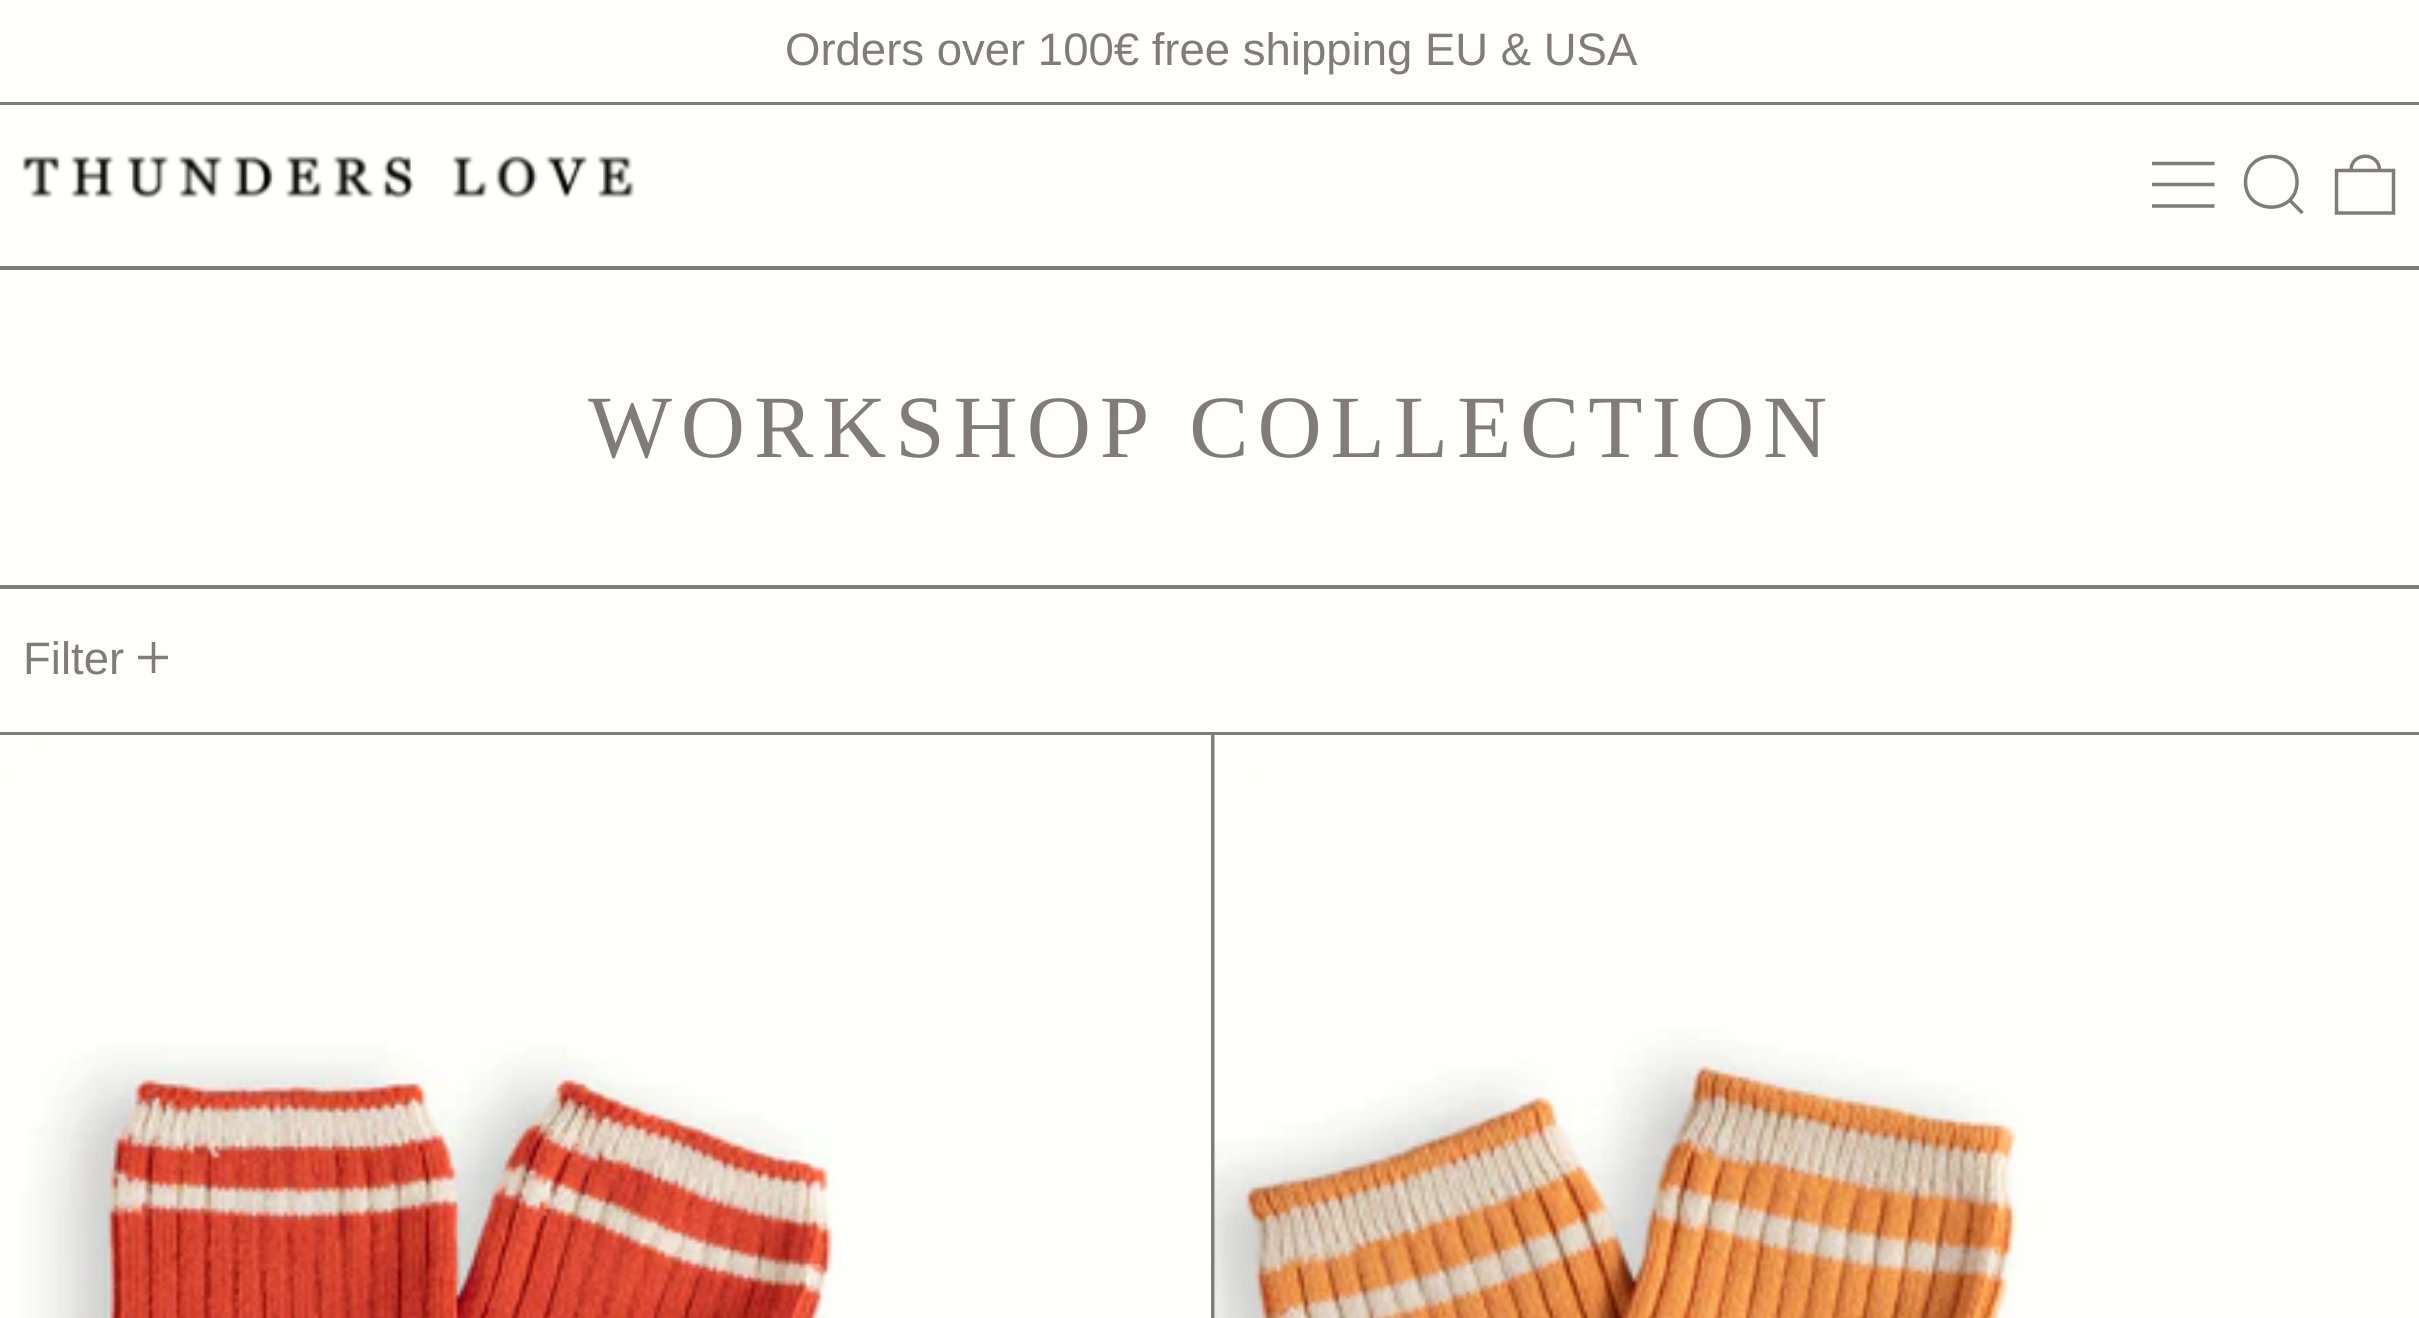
import math
import cairo

surface = cairo.ImageSurface(cairo.FORMAT_RGB24, 2419, 1318)
ctx = cairo.Context(surface)
options = cairo.FontOptions()
options.set_hint_metrics(cairo.HINT_METRICS_OFF)
options.set_hint_style(cairo.HINT_STYLE_NONE)
ctx.set_font_options(options)
ctx.set_miter_limit(4)


def spaced_text(x, y, s, letter, word):
    ctx.move_to(x, y)
    for ch in s:
        ctx.show_text(ch)
        ctx.rel_move_to(letter + word * (ch == ' '), 0)


def picture(path, x, y, w, h):
    ctx.save()
    ctx.set_source_surface(cairo.ImageSurface.create_from_png(path), x, y)
    ctx.rectangle(x, y, w, h)
    ctx.fill()
    ctx.restore()


ctx.set_source_rgb(1, 1, 0.984)
ctx.paint()
ctx.set_source_rgb(0.506, 0.486, 0.471)
ctx.rectangle(0, 102, 2419, 3)
ctx.fill()
ctx.select_font_face("Arimo")
ctx.set_font_size(45.5)
ctx.move_to(785, 65)
ctx.show_text("Orders over 100€ free shipping EU & USA")
ctx.rectangle(0, 266, 2419, 4)
ctx.fill()
picture("img1.png", 22, 155, 612, 45)
ctx.new_path()
ctx.move_to(2152, 163.5)
ctx.line_to(2214.5, 163.5)
ctx.move_to(2152, 184.5)
ctx.line_to(2214.5, 184.5)
ctx.move_to(2152, 206)
ctx.line_to(2214.5, 206)
ctx.set_line_width(3.5)
ctx.stroke()
ctx.new_path()
ctx.move_to(2245.5, 182)
ctx.curve_to(2245.5, 215.5, 2297, 215.5, 2297, 182)
ctx.curve_to(2297, 148, 2245.5, 148, 2245.5, 182)
ctx.close_path()
ctx.move_to(2289.5, 200)
ctx.line_to(2302.5, 213)
ctx.stroke()
ctx.new_path()
ctx.move_to(2336.5, 170.5)
ctx.line_to(2393.5, 170.5)
ctx.line_to(2393.5, 213)
ctx.line_to(2336.5, 213)
ctx.close_path()
ctx.move_to(2379.5, 170.5)
ctx.curve_to(2379.5, 151.5, 2351, 151.5, 2351, 170.5)
ctx.stroke()
ctx.rectangle(0, 585, 2419, 4)
ctx.fill()
ctx.select_font_face("Liberation Serif")
ctx.set_font_size(88.9)
spaced_text(588, 457, "WORKSHOP COLLECTION", 8.9, 0)
ctx.rectangle(0, 732, 2419, 4)
ctx.fill()
ctx.select_font_face("Arimo")
ctx.set_font_size(45.5)
ctx.move_to(23, 674)
ctx.show_text("Filter")
ctx.save()
ctx.rectangle(137, 641, 31, 35)
ctx.clip()
ctx.new_path()
ctx.move_to(153.5, 642)
ctx.line_to(153.5, 673)
ctx.move_to(138, 657.5)
ctx.line_to(169, 657.5)
ctx.stroke()
ctx.restore()
ctx.rectangle(1211, 736, 4, 582)
ctx.fill()
picture("img2.png", 0, 735, 1211, 583)
picture("img3.png", 1214, 735, 1205, 583)
surface.write_to_png("page.png")
